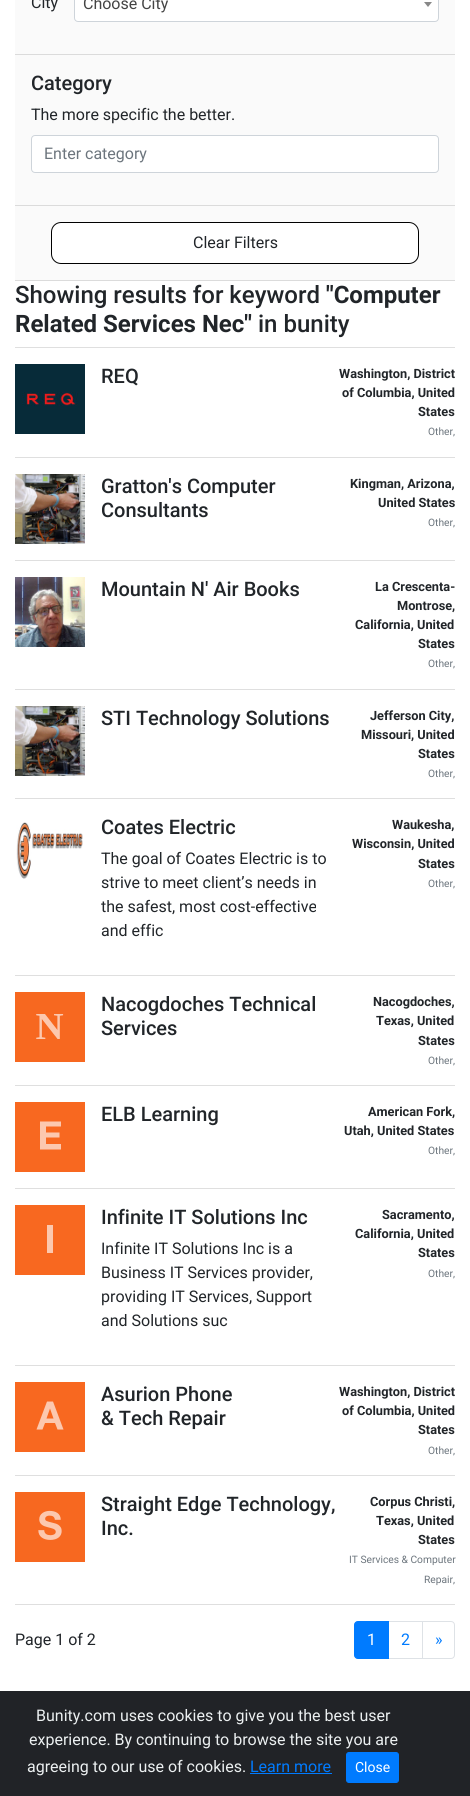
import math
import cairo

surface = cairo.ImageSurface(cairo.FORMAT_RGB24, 470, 1796)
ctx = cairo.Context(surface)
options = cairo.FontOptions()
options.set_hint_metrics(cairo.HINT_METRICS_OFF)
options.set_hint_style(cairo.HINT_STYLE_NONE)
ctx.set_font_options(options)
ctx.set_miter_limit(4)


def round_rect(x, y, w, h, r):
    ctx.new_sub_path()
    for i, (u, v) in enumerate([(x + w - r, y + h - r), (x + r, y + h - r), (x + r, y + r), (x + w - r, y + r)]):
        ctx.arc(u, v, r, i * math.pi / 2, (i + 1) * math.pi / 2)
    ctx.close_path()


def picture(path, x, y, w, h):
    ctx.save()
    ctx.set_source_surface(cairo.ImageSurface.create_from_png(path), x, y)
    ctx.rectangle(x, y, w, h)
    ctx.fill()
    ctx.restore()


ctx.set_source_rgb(1, 1, 1)
ctx.paint()
ctx.set_source_rgb(0.98, 0.98, 0.98)
ctx.rectangle(15, 0, 440, 280)
ctx.fill()
ctx.set_source_rgb(0.859, 0.859, 0.859)
ctx.rectangle(15, 54, 440, 1)
ctx.fill()
ctx.select_font_face("Roboto")
ctx.set_font_size(16)
ctx.set_source_rgb(0.129, 0.145, 0.161)
ctx.move_to(31, 8)
ctx.show_text("City")
ctx.set_source_rgb(1, 1, 1)
round_rect(74.5, -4.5, 364, 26, 3.5)
ctx.fill_preserve()
ctx.set_source_rgb(0.808, 0.831, 0.855)
ctx.set_line_width(1)
ctx.stroke()
ctx.set_source_rgb(0.267, 0.267, 0.267)
ctx.move_to(83, 9)
ctx.show_text("Choose City")
ctx.set_source_rgb(0.533, 0.533, 0.533)
ctx.new_path()
ctx.move_to(424, 2)
ctx.line_to(432, 2)
ctx.line_to(428, 7)
ctx.close_path()
ctx.fill()
ctx.set_source_rgb(0.859, 0.859, 0.859)
ctx.rectangle(15, 205, 440, 1)
ctx.fill()
ctx.select_font_face("Roboto Medium")
ctx.set_font_size(20)
ctx.set_source_rgb(0.129, 0.145, 0.161)
ctx.move_to(31, 90)
ctx.show_text("Category")
ctx.select_font_face("Roboto")
ctx.set_font_size(16)
ctx.move_to(31, 120)
ctx.show_text("The more specific the better.")
ctx.set_source_rgb(1, 1, 1)
round_rect(31.5, 135.5, 407, 37, 3.5)
ctx.fill_preserve()
ctx.set_source_rgb(0.808, 0.831, 0.855)
ctx.stroke()
ctx.set_source_rgb(0.424, 0.459, 0.49)
ctx.move_to(44, 159)
ctx.show_text("Enter category")
ctx.set_source_rgb(0.859, 0.859, 0.859)
ctx.rectangle(15, 280, 440, 1)
ctx.fill()
ctx.set_source_rgb(1, 1, 1)
round_rect(51.5, 222.5, 367, 41, 9.5)
ctx.fill_preserve()
ctx.set_source_rgb(0, 0, 0)
ctx.stroke()
ctx.set_source_rgb(0.129, 0.145, 0.161)
ctx.move_to(193, 248)
ctx.show_text("Clear Filters")
ctx.set_source_rgb(0.875, 0.875, 0.875)
ctx.rectangle(15, 347, 440, 1)
ctx.fill()
ctx.select_font_face("Roboto Medium")
ctx.set_font_size(24)
ctx.set_source_rgb(0.129, 0.145, 0.161)
ctx.move_to(15, 303)
ctx.show_text("Showing results for keyword")
ctx.select_font_face("Roboto", cairo.FONT_SLANT_NORMAL, cairo.FONT_WEIGHT_BOLD)
ctx.move_to(326, 303)
ctx.show_text("\"Computer")
ctx.move_to(15, 332)
ctx.show_text("Related Services Nec\"")
ctx.select_font_face("Roboto Medium")
ctx.move_to(258, 332)
ctx.show_text("in bunity")
ctx.set_source_rgb(0.875, 0.875, 0.875)
ctx.rectangle(15, 457, 440, 1)
ctx.fill()
picture("img1.png", 15, 364, 70, 70)
ctx.set_font_size(20)
ctx.set_source_rgb(0.129, 0.145, 0.161)
ctx.move_to(101, 383)
ctx.show_text("REQ")
ctx.select_font_face("Roboto", cairo.FONT_SLANT_NORMAL, cairo.FONT_WEIGHT_BOLD)
ctx.set_font_size(12.75)
ctx.move_to(339, 378)
ctx.show_text("Washington, District")
ctx.move_to(342, 397)
ctx.show_text("of Columbia, United")
ctx.move_to(418, 416)
ctx.show_text("States")
ctx.select_font_face("Roboto")
ctx.set_font_size(10.25)
ctx.set_source_rgb(0.424, 0.459, 0.49)
ctx.move_to(428, 435)
ctx.show_text("Other,")
ctx.set_source_rgb(0.875, 0.875, 0.875)
ctx.rectangle(15, 560, 440, 1)
ctx.fill()
picture("img2.png", 15, 474, 70, 70)
ctx.select_font_face("Roboto Medium")
ctx.set_font_size(20)
ctx.set_source_rgb(0.129, 0.145, 0.161)
ctx.move_to(101, 493)
ctx.show_text("Gratton's Computer")
ctx.move_to(101, 517)
ctx.show_text("Consultants")
ctx.select_font_face("Roboto", cairo.FONT_SLANT_NORMAL, cairo.FONT_WEIGHT_BOLD)
ctx.set_font_size(12.75)
ctx.move_to(350, 488)
ctx.show_text("Kingman, Arizona,")
ctx.move_to(378, 507)
ctx.show_text("United States")
ctx.select_font_face("Roboto")
ctx.set_font_size(10.25)
ctx.set_source_rgb(0.424, 0.459, 0.49)
ctx.move_to(428, 526)
ctx.show_text("Other,")
ctx.set_source_rgb(0.875, 0.875, 0.875)
ctx.rectangle(15, 689, 440, 1)
ctx.fill()
picture("img3.png", 15, 577, 70, 70)
ctx.select_font_face("Roboto Medium")
ctx.set_font_size(20)
ctx.set_source_rgb(0.129, 0.145, 0.161)
ctx.move_to(101, 596)
ctx.show_text("Mountain N' Air Books")
ctx.select_font_face("Roboto", cairo.FONT_SLANT_NORMAL, cairo.FONT_WEIGHT_BOLD)
ctx.set_font_size(12.75)
ctx.move_to(375, 591)
ctx.show_text("La Crescenta-")
ctx.move_to(397, 610)
ctx.show_text("Montrose,")
ctx.move_to(355, 629)
ctx.show_text("California, United")
ctx.move_to(418, 648)
ctx.show_text("States")
ctx.select_font_face("Roboto")
ctx.set_font_size(10.25)
ctx.set_source_rgb(0.424, 0.459, 0.49)
ctx.move_to(428, 667)
ctx.show_text("Other,")
ctx.set_source_rgb(0.875, 0.875, 0.875)
ctx.rectangle(15, 798, 440, 1)
ctx.fill()
picture("img4.png", 15, 706, 70, 70)
ctx.select_font_face("Roboto Medium")
ctx.set_font_size(20)
ctx.set_source_rgb(0.129, 0.145, 0.161)
ctx.move_to(101, 725)
ctx.show_text("STI Technology Solutions")
ctx.select_font_face("Roboto", cairo.FONT_SLANT_NORMAL, cairo.FONT_WEIGHT_BOLD)
ctx.set_font_size(12.75)
ctx.move_to(370, 720)
ctx.show_text("Jefferson City,")
ctx.move_to(361, 739)
ctx.show_text("Missouri, United")
ctx.move_to(418, 758)
ctx.show_text("States")
ctx.select_font_face("Roboto")
ctx.set_font_size(10.25)
ctx.set_source_rgb(0.424, 0.459, 0.49)
ctx.move_to(428, 777)
ctx.show_text("Other,")
ctx.set_source_rgb(0.875, 0.875, 0.875)
ctx.rectangle(15, 975, 440, 1)
ctx.fill()
picture("img5.png", 16, 822, 67, 57)
ctx.select_font_face("Roboto Medium")
ctx.set_font_size(20)
ctx.set_source_rgb(0.129, 0.145, 0.161)
ctx.move_to(101, 834)
ctx.show_text("Coates Electric")
ctx.select_font_face("Roboto")
ctx.set_font_size(16)
ctx.move_to(101, 864)
ctx.show_text("The goal of Coates Electric is to")
ctx.move_to(101, 888)
ctx.show_text("strive to meet client’s needs in")
ctx.move_to(101, 912)
ctx.show_text("the safest, most cost-effective")
ctx.move_to(101, 936)
ctx.show_text("and effic")
ctx.select_font_face("Roboto", cairo.FONT_SLANT_NORMAL, cairo.FONT_WEIGHT_BOLD)
ctx.set_font_size(12.75)
ctx.move_to(392, 829)
ctx.show_text("Waukesha,")
ctx.move_to(352, 848)
ctx.show_text("Wisconsin, United")
ctx.move_to(418, 868)
ctx.show_text("States")
ctx.select_font_face("Roboto")
ctx.set_font_size(10.25)
ctx.set_source_rgb(0.424, 0.459, 0.49)
ctx.move_to(428, 887)
ctx.show_text("Other,")
ctx.set_source_rgb(0.875, 0.875, 0.875)
ctx.rectangle(15, 1085, 440, 1)
ctx.fill()
picture("img6.png", 15, 992, 70, 70)
ctx.select_font_face("Roboto Medium")
ctx.set_font_size(20)
ctx.set_source_rgb(0.129, 0.145, 0.161)
ctx.move_to(101, 1011)
ctx.show_text("Nacogdoches Technical")
ctx.move_to(101, 1035)
ctx.show_text("Services")
ctx.select_font_face("Roboto", cairo.FONT_SLANT_NORMAL, cairo.FONT_WEIGHT_BOLD)
ctx.set_font_size(12.75)
ctx.move_to(373, 1006)
ctx.show_text("Nacogdoches,")
ctx.move_to(376, 1025)
ctx.show_text("Texas, United")
ctx.move_to(418, 1045)
ctx.show_text("States")
ctx.select_font_face("Roboto")
ctx.set_font_size(10.25)
ctx.set_source_rgb(0.424, 0.459, 0.49)
ctx.move_to(428, 1064)
ctx.show_text("Other,")
ctx.set_source_rgb(0.875, 0.875, 0.875)
ctx.rectangle(15, 1188, 440, 1)
ctx.fill()
ctx.set_source_rgb(0.969, 0.408, 0.125)
ctx.rectangle(15, 1102, 70, 70)
ctx.fill()
ctx.set_source_rgb(0.988, 0.784, 0.686)
ctx.new_path()
ctx.move_to(61, 1121.5)
ctx.line_to(61, 1126.5)
ctx.line_to(46, 1126.5)
ctx.line_to(46, 1132.5)
ctx.line_to(59.5, 1132.5)
ctx.line_to(59.5, 1137.5)
ctx.line_to(46, 1137.5)
ctx.line_to(46, 1144)
ctx.line_to(61, 1144)
ctx.line_to(61, 1149.5)
ctx.line_to(40, 1149.5)
ctx.line_to(40, 1121.5)
ctx.close_path()
ctx.fill()
ctx.select_font_face("Roboto Medium")
ctx.set_font_size(20)
ctx.set_source_rgb(0.129, 0.145, 0.161)
ctx.move_to(101, 1121)
ctx.show_text("ELB Learning")
ctx.select_font_face("Roboto", cairo.FONT_SLANT_NORMAL, cairo.FONT_WEIGHT_BOLD)
ctx.set_font_size(12.75)
ctx.move_to(368, 1116)
ctx.show_text("American Fork,")
ctx.move_to(344, 1135)
ctx.show_text("Utah, United States")
ctx.select_font_face("Roboto")
ctx.set_font_size(10.25)
ctx.set_source_rgb(0.424, 0.459, 0.49)
ctx.move_to(428, 1154)
ctx.show_text("Other,")
ctx.set_source_rgb(0.875, 0.875, 0.875)
ctx.rectangle(15, 1365, 440, 1)
ctx.fill()
ctx.set_source_rgb(0.969, 0.408, 0.125)
ctx.rectangle(15, 1205, 70, 70)
ctx.fill()
ctx.set_source_rgb(0.988, 0.784, 0.686)
ctx.rectangle(47, 1225, 6, 28)
ctx.fill()
ctx.select_font_face("Roboto Medium")
ctx.set_font_size(20)
ctx.set_source_rgb(0.129, 0.145, 0.161)
ctx.move_to(101, 1224)
ctx.show_text("Infinite IT Solutions Inc")
ctx.select_font_face("Roboto")
ctx.set_font_size(16)
ctx.move_to(101, 1254)
ctx.show_text("Infinite IT Solutions Inc is a")
ctx.move_to(101, 1278)
ctx.show_text("Business IT Services provider,")
ctx.move_to(101, 1302)
ctx.show_text("providing IT Services, Support")
ctx.move_to(101, 1326)
ctx.show_text("and Solutions suc")
ctx.select_font_face("Roboto", cairo.FONT_SLANT_NORMAL, cairo.FONT_WEIGHT_BOLD)
ctx.set_font_size(12.75)
ctx.move_to(382, 1219)
ctx.show_text("Sacramento,")
ctx.move_to(355, 1238)
ctx.show_text("California, United")
ctx.move_to(418, 1257)
ctx.show_text("States")
ctx.select_font_face("Roboto")
ctx.set_font_size(10.25)
ctx.set_source_rgb(0.424, 0.459, 0.49)
ctx.move_to(428, 1277)
ctx.show_text("Other,")
ctx.set_source_rgb(0.875, 0.875, 0.875)
ctx.rectangle(15, 1475, 440, 1)
ctx.fill()
ctx.set_source_rgb(0.969, 0.408, 0.125)
ctx.rectangle(15, 1382, 70, 70)
ctx.fill()
ctx.set_source_rgb(0.988, 0.784, 0.686)
ctx.new_path()
ctx.move_to(53, 1401.5)
ctx.line_to(63.5, 1429.5)
ctx.line_to(57.5, 1429.5)
ctx.line_to(55, 1423)
ctx.line_to(45, 1423)
ctx.line_to(42.5, 1429.5)
ctx.line_to(36.5, 1429.5)
ctx.line_to(47, 1401.5)
ctx.close_path()
ctx.move_to(53.5, 1418.5)
ctx.line_to(50, 1408.5)
ctx.line_to(46.5, 1418.5)
ctx.close_path()
ctx.fill()
ctx.select_font_face("Roboto Medium")
ctx.set_font_size(20)
ctx.set_source_rgb(0.129, 0.145, 0.161)
ctx.move_to(101, 1401)
ctx.show_text("Asurion Phone")
ctx.move_to(101, 1425)
ctx.show_text("& Tech Repair")
ctx.select_font_face("Roboto", cairo.FONT_SLANT_NORMAL, cairo.FONT_WEIGHT_BOLD)
ctx.set_font_size(12.75)
ctx.move_to(339, 1396)
ctx.show_text("Washington, District")
ctx.move_to(342, 1415)
ctx.show_text("of Columbia, United")
ctx.move_to(418, 1434)
ctx.show_text("States")
ctx.select_font_face("Roboto")
ctx.set_font_size(10.25)
ctx.set_source_rgb(0.424, 0.459, 0.49)
ctx.move_to(428, 1454)
ctx.show_text("Other,")
ctx.set_source_rgb(0.875, 0.875, 0.875)
ctx.rectangle(15, 1604, 440, 1)
ctx.fill()
picture("img7.png", 15, 1492, 70, 70)
ctx.select_font_face("Roboto Medium")
ctx.set_font_size(20)
ctx.set_source_rgb(0.129, 0.145, 0.161)
ctx.move_to(101, 1511)
ctx.show_text("Straight Edge Technology,")
ctx.move_to(101, 1535)
ctx.show_text("Inc.")
ctx.select_font_face("Roboto", cairo.FONT_SLANT_NORMAL, cairo.FONT_WEIGHT_BOLD)
ctx.set_font_size(12.75)
ctx.move_to(370, 1506)
ctx.show_text("Corpus Christi,")
ctx.move_to(376, 1525)
ctx.show_text("Texas, United")
ctx.move_to(418, 1544)
ctx.show_text("States")
ctx.select_font_face("Roboto")
ctx.set_font_size(10.25)
ctx.set_source_rgb(0.424, 0.459, 0.49)
ctx.move_to(349, 1563)
ctx.show_text("IT Services & Computer")
ctx.move_to(424, 1583)
ctx.show_text("Repair,")
ctx.set_font_size(16)
ctx.set_source_rgb(0.129, 0.145, 0.161)
ctx.move_to(15, 1645)
ctx.show_text("Page 1 of 2")
ctx.rectangle(388.5, 1621.5, 34, 37)
ctx.set_source_rgb(0.871, 0.886, 0.902)
ctx.stroke()
ctx.set_source_rgb(0, 0.482, 1)
ctx.new_path()
ctx.move_to(358, 1621.5)
ctx.line_to(388.5, 1621.5)
ctx.line_to(388.5, 1658.5)
ctx.line_to(358, 1658.5)
ctx.curve_to(356, 1658.5, 354.5, 1657, 354.5, 1655)
ctx.line_to(354.5, 1625)
ctx.curve_to(354.5, 1623, 356, 1621.5, 358, 1621.5)
ctx.close_path()
ctx.fill_preserve()
ctx.stroke()
ctx.set_source_rgb(1, 1, 1)
ctx.move_to(367, 1645)
ctx.show_text("1")
ctx.set_source_rgb(0, 0.482, 1)
ctx.move_to(401, 1645)
ctx.show_text("2")
ctx.set_source_rgb(1, 1, 1)
ctx.new_path()
ctx.move_to(422.5, 1621.5)
ctx.line_to(451, 1621.5)
ctx.curve_to(453, 1621.5, 454.5, 1623, 454.5, 1625)
ctx.line_to(454.5, 1655)
ctx.curve_to(454.5, 1657, 453, 1658.5, 451, 1658.5)
ctx.line_to(422.5, 1658.5)
ctx.close_path()
ctx.fill_preserve()
ctx.set_source_rgb(0.871, 0.886, 0.902)
ctx.stroke()
ctx.set_source_rgb(0, 0.482, 1)
ctx.move_to(435, 1645)
ctx.show_text("»")
ctx.set_source_rgb(0.129, 0.137, 0.153)
ctx.rectangle(0, 1691, 470, 105)
ctx.fill()
ctx.set_source_rgb(0.925, 0.941, 0.945)
ctx.move_to(36, 1721)
ctx.show_text("Bunity.com uses cookies to give you the best user")
ctx.move_to(29, 1745)
ctx.show_text("experience. By continuing to browse the site you are")
ctx.move_to(27, 1772)
ctx.show_text("agreeing to our use of cookies.")
ctx.set_source_rgb(0, 0.482, 1)
ctx.move_to(250, 1772)
ctx.show_text("Learn more")
ctx.rectangle(250, 1773, 82, 1)
ctx.fill()
round_rect(346.5, 1752.5, 52, 30, 2.5)
ctx.fill_preserve()
ctx.stroke()
ctx.set_font_size(14)
ctx.set_source_rgb(1, 1, 1)
ctx.move_to(355, 1772)
ctx.show_text("Close")
surface.write_to_png("page.png")
